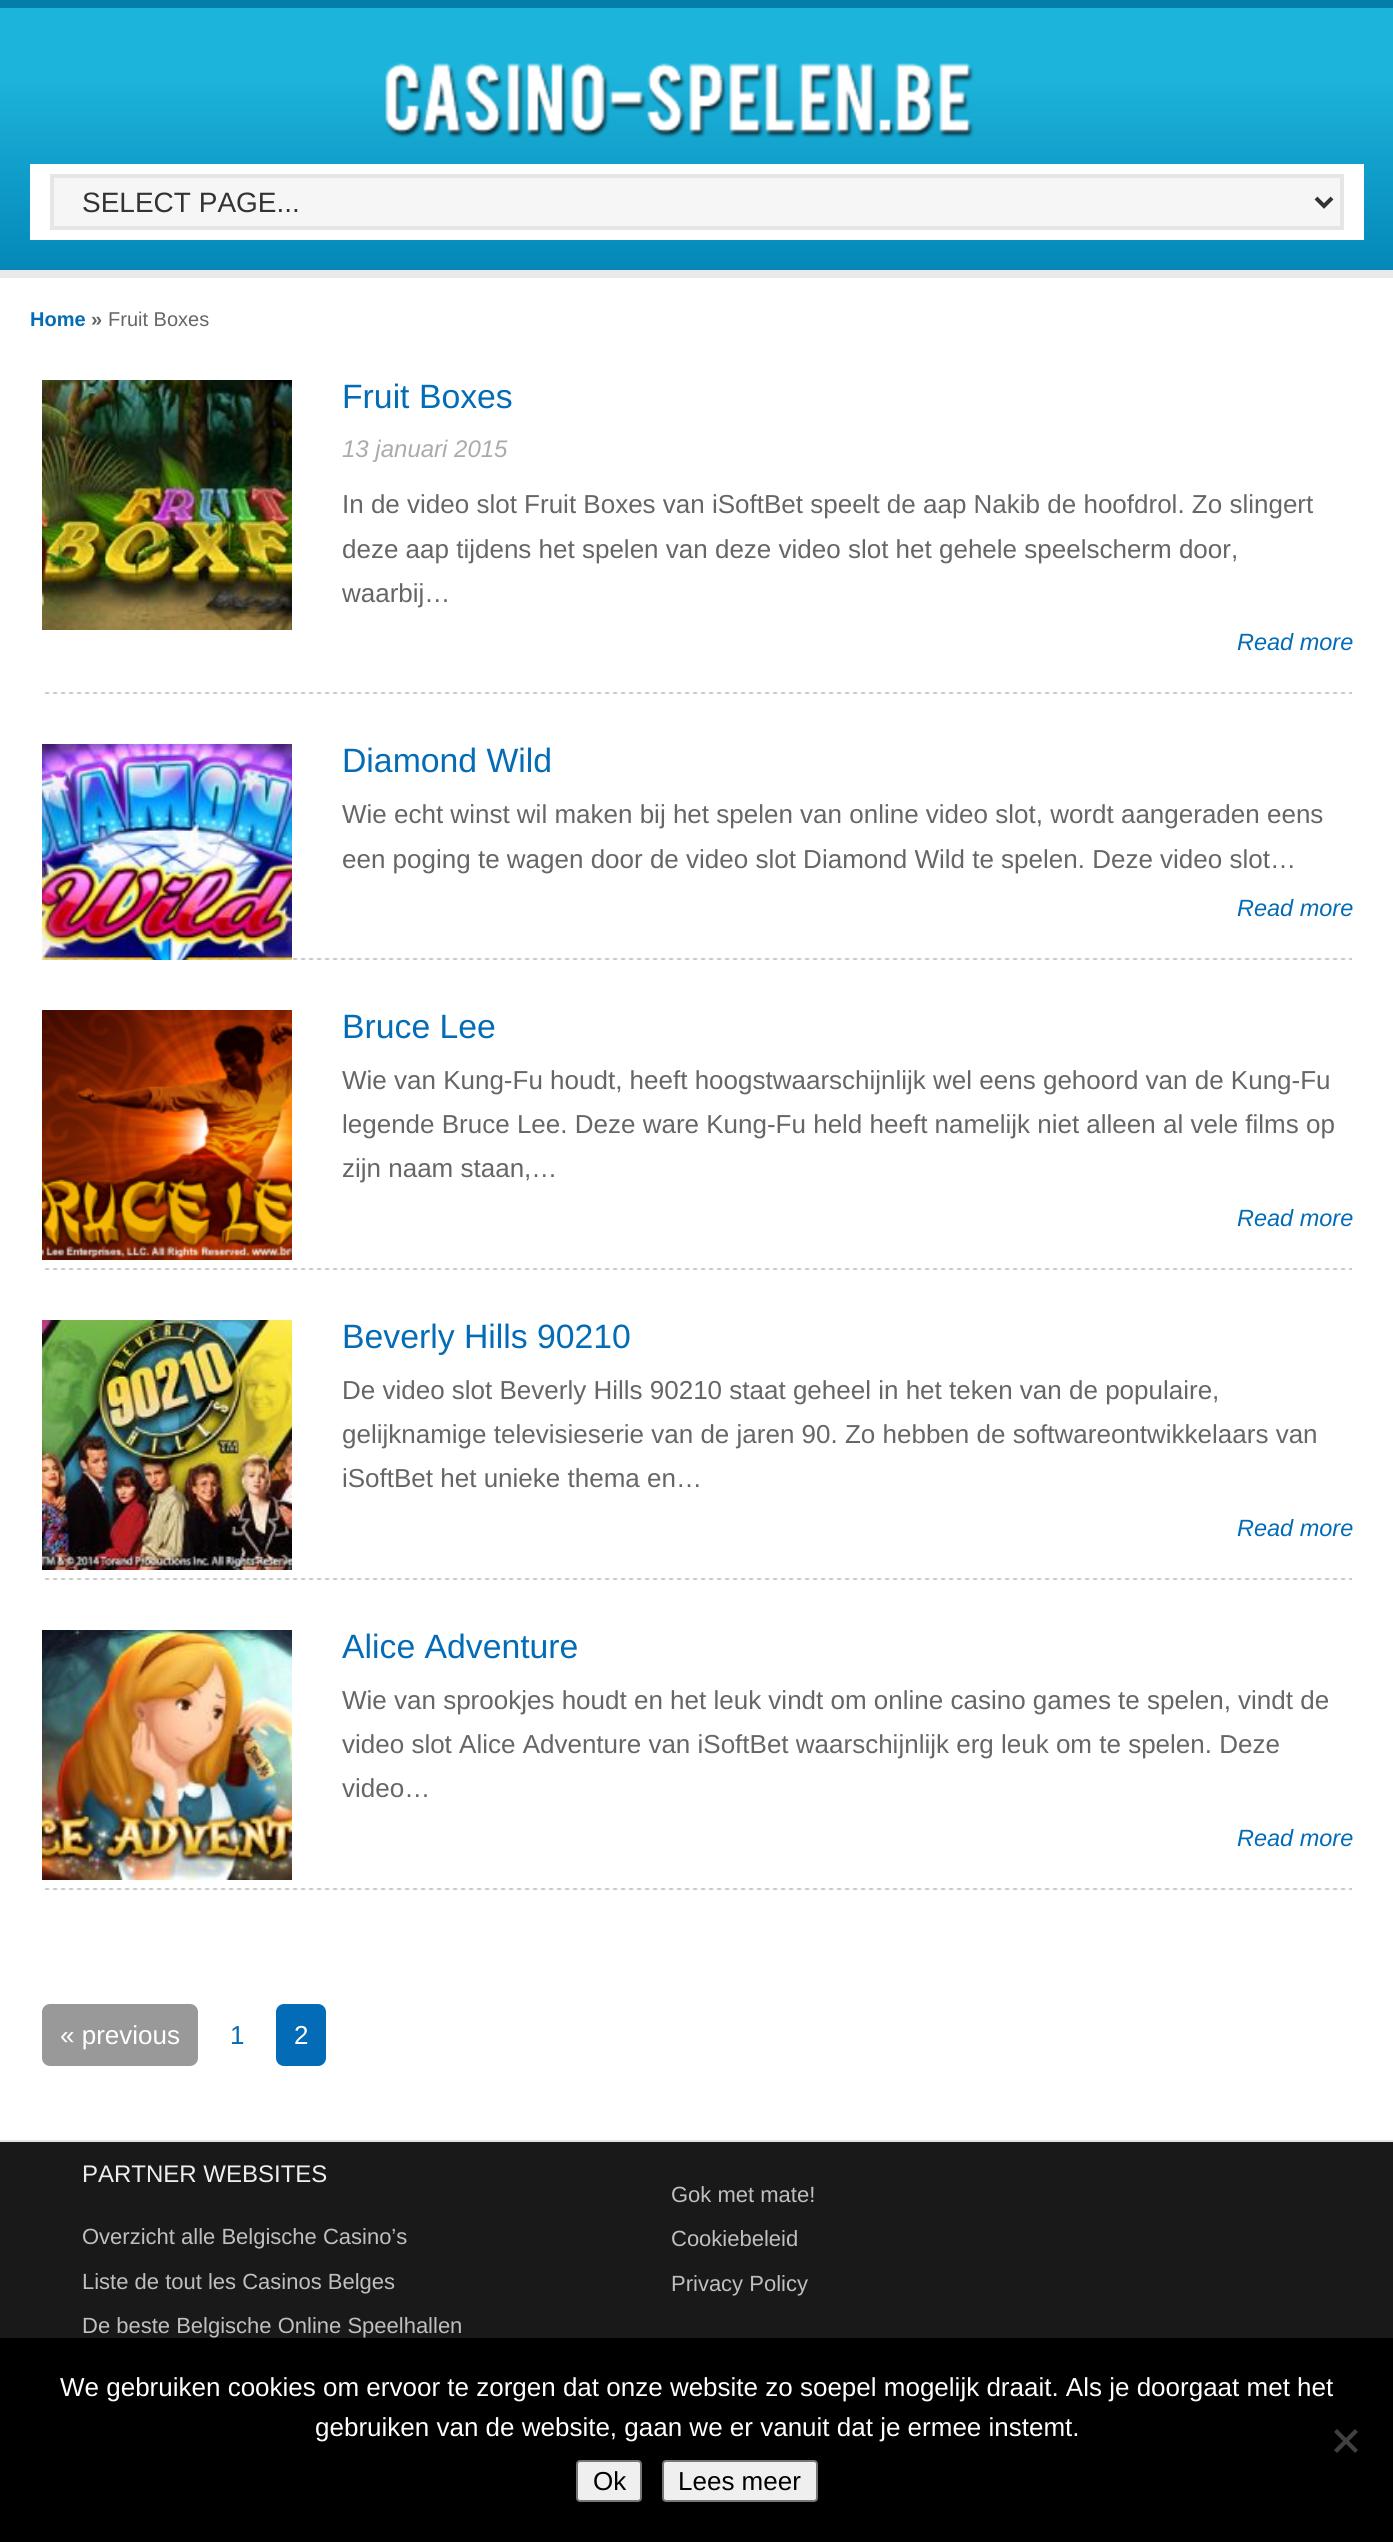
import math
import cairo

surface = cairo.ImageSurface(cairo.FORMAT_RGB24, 1393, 2542)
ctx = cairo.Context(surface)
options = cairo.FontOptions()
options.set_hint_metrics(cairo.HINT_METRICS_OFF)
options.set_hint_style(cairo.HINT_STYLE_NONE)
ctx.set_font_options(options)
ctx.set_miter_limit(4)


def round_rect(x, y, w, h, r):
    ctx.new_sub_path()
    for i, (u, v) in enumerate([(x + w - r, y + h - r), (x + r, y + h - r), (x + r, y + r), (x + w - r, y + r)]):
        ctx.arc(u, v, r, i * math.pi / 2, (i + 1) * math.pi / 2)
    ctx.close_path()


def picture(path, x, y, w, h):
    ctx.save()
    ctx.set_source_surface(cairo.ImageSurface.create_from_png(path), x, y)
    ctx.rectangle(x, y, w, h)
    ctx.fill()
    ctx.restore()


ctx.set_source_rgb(0.098, 0.098, 0.098)
ctx.paint()
gradient = cairo.LinearGradient(697, 8, 697, 270)
gradient.add_color_stop_rgba(0.25, 0.114, 0.706, 0.859, 1)
gradient.add_color_stop_rgba(1, 0.016, 0.533, 0.722, 1)
ctx.set_source(gradient)
ctx.rectangle(0, 8, 1393, 262)
ctx.fill()
ctx.set_source_rgb(0.02, 0.49, 0.663)
ctx.rectangle(0, 0, 1393, 8)
ctx.fill()
ctx.set_source_rgb(0.914, 0.914, 0.914)
ctx.rectangle(0, 270, 1393, 8)
ctx.fill()
picture("img1.png", 385, 63, 589, 75)
ctx.set_source_rgb(1, 1, 1)
ctx.rectangle(30, 164, 1334, 76)
ctx.fill()
ctx.set_source_rgb(0.961, 0.961, 0.961)
ctx.rectangle(52, 176, 1290, 52)
ctx.fill_preserve()
ctx.set_source_rgb(0.902, 0.902, 0.902)
ctx.set_line_width(4)
ctx.stroke()
ctx.new_path()
ctx.move_to(1316, 198)
ctx.line_to(1324, 206)
ctx.line_to(1332, 198)
ctx.set_source_rgb(0.2, 0.2, 0.2)
ctx.stroke()
ctx.select_font_face("Liberation Sans")
ctx.set_font_size(28)
ctx.move_to(82, 212)
ctx.show_text("SELECT PAGE...")
ctx.set_source_rgb(1, 1, 1)
ctx.rectangle(0, 278, 1393, 1862)
ctx.fill()
ctx.select_font_face("Liberation Sans", cairo.FONT_SLANT_NORMAL, cairo.FONT_WEIGHT_BOLD)
ctx.set_font_size(20)
ctx.set_source_rgb(0.016, 0.424, 0.714)
ctx.move_to(30, 326)
ctx.show_text("Home")
ctx.set_source_rgb(0.4, 0.4, 0.4)
ctx.move_to(91, 326)
ctx.show_text("»")
ctx.select_font_face("Liberation Sans")
ctx.move_to(108, 326)
ctx.show_text("Fruit Boxes")
picture("img2.png", 44, 692, 1308, 2)
picture("img3.png", 42, 380, 250, 250)
ctx.set_font_size(33.75)
ctx.set_source_rgb(0.016, 0.424, 0.714)
ctx.move_to(342, 408)
ctx.show_text("Fruit Boxes")
ctx.select_font_face("Liberation Sans", cairo.FONT_SLANT_ITALIC)
ctx.set_font_size(24)
ctx.set_source_rgb(0.671, 0.671, 0.671)
ctx.move_to(342, 457)
ctx.show_text("13 januari 2015")
ctx.select_font_face("Liberation Sans")
ctx.set_font_size(26)
ctx.set_source_rgb(0.4, 0.4, 0.4)
ctx.move_to(342, 513)
ctx.show_text("In de video slot Fruit Boxes van iSoftBet speelt de aap Nakib de hoofdrol. Zo slingert")
ctx.move_to(342, 558)
ctx.show_text("deze aap tijdens het spelen van deze video slot het gehele speelscherm door,")
ctx.move_to(342, 602)
ctx.show_text("waarbij…")
ctx.select_font_face("Liberation Sans", cairo.FONT_SLANT_ITALIC)
ctx.set_font_size(23.5)
ctx.set_source_rgb(0.016, 0.424, 0.714)
ctx.move_to(1237, 650)
ctx.show_text("Read more")
picture("img4.png", 292, 958, 1060, 2)
picture("img5.png", 42, 744, 250, 216)
ctx.select_font_face("Liberation Sans")
ctx.set_font_size(33.75)
ctx.move_to(342, 772)
ctx.show_text("Diamond Wild")
ctx.set_font_size(26)
ctx.set_source_rgb(0.4, 0.4, 0.4)
ctx.move_to(342, 823)
ctx.show_text("Wie echt winst wil maken bij het spelen van online video slot, wordt aangeraden eens")
ctx.move_to(342, 868)
ctx.show_text("een poging te wagen door de video slot Diamond Wild te spelen. Deze video slot…")
ctx.select_font_face("Liberation Sans", cairo.FONT_SLANT_ITALIC)
ctx.set_font_size(23.5)
ctx.set_source_rgb(0.016, 0.424, 0.714)
ctx.move_to(1237, 916)
ctx.show_text("Read more")
picture("img2.png", 44, 1268, 1308, 2)
picture("img6.png", 42, 1010, 250, 250)
ctx.select_font_face("Liberation Sans")
ctx.set_font_size(33.75)
ctx.move_to(342, 1038)
ctx.show_text("Bruce Lee")
ctx.set_font_size(26)
ctx.set_source_rgb(0.4, 0.4, 0.4)
ctx.move_to(342, 1089)
ctx.show_text("Wie van Kung-Fu houdt, heeft hoogstwaarschijnlijk wel eens gehoord van de Kung-Fu")
ctx.move_to(342, 1133)
ctx.show_text("legende Bruce Lee. Deze ware Kung-Fu held heeft namelijk niet alleen al vele films op")
ctx.move_to(342, 1177)
ctx.show_text("zijn naam staan,…")
ctx.select_font_face("Liberation Sans", cairo.FONT_SLANT_ITALIC)
ctx.set_font_size(23.5)
ctx.set_source_rgb(0.016, 0.424, 0.714)
ctx.move_to(1237, 1226)
ctx.show_text("Read more")
picture("img2.png", 44, 1578, 1308, 2)
picture("img7.png", 42, 1320, 250, 250)
ctx.select_font_face("Liberation Sans")
ctx.set_font_size(33.75)
ctx.move_to(342, 1348)
ctx.show_text("Beverly Hills 90210")
ctx.set_font_size(26)
ctx.set_source_rgb(0.4, 0.4, 0.4)
ctx.move_to(342, 1399)
ctx.show_text("De video slot Beverly Hills 90210 staat geheel in het teken van de populaire,")
ctx.move_to(342, 1443)
ctx.show_text("gelijknamige televisieserie van de jaren 90. Zo hebben de softwareontwikkelaars van")
ctx.move_to(342, 1487)
ctx.show_text("iSoftBet het unieke thema en…")
ctx.select_font_face("Liberation Sans", cairo.FONT_SLANT_ITALIC)
ctx.set_font_size(23.5)
ctx.set_source_rgb(0.016, 0.424, 0.714)
ctx.move_to(1237, 1536)
ctx.show_text("Read more")
picture("img2.png", 44, 1888, 1308, 2)
picture("img8.png", 42, 1630, 250, 250)
ctx.select_font_face("Liberation Sans")
ctx.set_font_size(33.75)
ctx.move_to(342, 1658)
ctx.show_text("Alice Adventure")
ctx.set_font_size(26)
ctx.set_source_rgb(0.4, 0.4, 0.4)
ctx.move_to(342, 1709)
ctx.show_text("Wie van sprookjes houdt en het leuk vindt om online casino games te spelen, vindt de")
ctx.move_to(342, 1753)
ctx.show_text("video slot Alice Adventure van iSoftBet waarschijnlijk erg leuk om te spelen. Deze")
ctx.move_to(342, 1797)
ctx.show_text("video…")
ctx.select_font_face("Liberation Sans", cairo.FONT_SLANT_ITALIC)
ctx.set_font_size(23.5)
ctx.set_source_rgb(0.016, 0.424, 0.714)
ctx.move_to(1237, 1846)
ctx.show_text("Read more")
ctx.set_source_rgb(0.6, 0.6, 0.6)
round_rect(42, 2004, 156, 62, 8)
ctx.fill()
ctx.select_font_face("Liberation Sans")
ctx.set_font_size(26)
ctx.set_source_rgb(1, 1, 1)
ctx.move_to(60, 2044)
ctx.show_text("« previous")
ctx.set_source_rgb(0.016, 0.424, 0.714)
ctx.move_to(230, 2044)
ctx.show_text("1")
round_rect(276, 2004, 50, 62, 8)
ctx.fill()
ctx.set_source_rgb(1, 1, 1)
ctx.move_to(294, 2044)
ctx.show_text("2")
ctx.set_source_rgb(0.886, 0.886, 0.886)
ctx.rectangle(0, 2140, 1393, 2)
ctx.fill()
ctx.set_font_size(24)
ctx.set_source_rgb(0.933, 0.933, 0.933)
ctx.move_to(82, 2182)
ctx.show_text("PARTNER WEBSITES")
ctx.set_font_size(22)
ctx.set_source_rgb(0.749, 0.749, 0.749)
ctx.move_to(82, 2244)
ctx.show_text("Overzicht alle Belgische Casino’s")
ctx.move_to(82, 2289)
ctx.show_text("Liste de tout les Casinos Belges")
ctx.move_to(82, 2333)
ctx.show_text("De beste Belgische Online Speelhallen")
ctx.move_to(671, 2202)
ctx.show_text("Gok met mate!")
ctx.move_to(671, 2246)
ctx.show_text("Cookiebeleid")
ctx.move_to(671, 2291)
ctx.show_text("Privacy Policy")
ctx.set_source_rgb(0, 0, 0)
ctx.rectangle(0, 2338, 1393, 204)
ctx.fill()
ctx.set_font_size(26)
ctx.set_source_rgb(1, 1, 1)
ctx.move_to(60, 2396)
ctx.show_text("We gebruiken cookies om ervoor te zorgen dat onze website zo soepel mogelijk draait. Als je doorgaat met het")
ctx.move_to(315, 2436)
ctx.show_text("gebruiken van de website, gaan we er vanuit dat je ermee instemt.")
ctx.set_source_rgb(0.251, 0.251, 0.251)
ctx.new_path()
ctx.move_to(1355, 2429)
ctx.line_to(1358, 2432)
ctx.line_to(1337, 2453)
ctx.line_to(1334, 2450)
ctx.close_path()
ctx.fill()
ctx.new_path()
ctx.move_to(1334, 2432)
ctx.line_to(1337, 2429)
ctx.line_to(1358, 2450)
ctx.line_to(1355, 2453)
ctx.close_path()
ctx.fill()
ctx.set_source_rgb(0.937, 0.937, 0.937)
round_rect(577, 2461, 64, 40, 3)
ctx.fill_preserve()
ctx.set_source_rgb(0.463, 0.463, 0.463)
ctx.set_line_width(2)
ctx.stroke()
ctx.set_source_rgb(0, 0, 0)
ctx.move_to(593, 2490)
ctx.show_text("Ok")
ctx.set_source_rgb(0.937, 0.937, 0.937)
round_rect(663, 2461, 154, 40, 3)
ctx.fill_preserve()
ctx.set_source_rgb(0.463, 0.463, 0.463)
ctx.stroke()
ctx.set_source_rgb(0, 0, 0)
ctx.move_to(678, 2490)
ctx.show_text("Lees meer")
surface.write_to_png("page.png")
